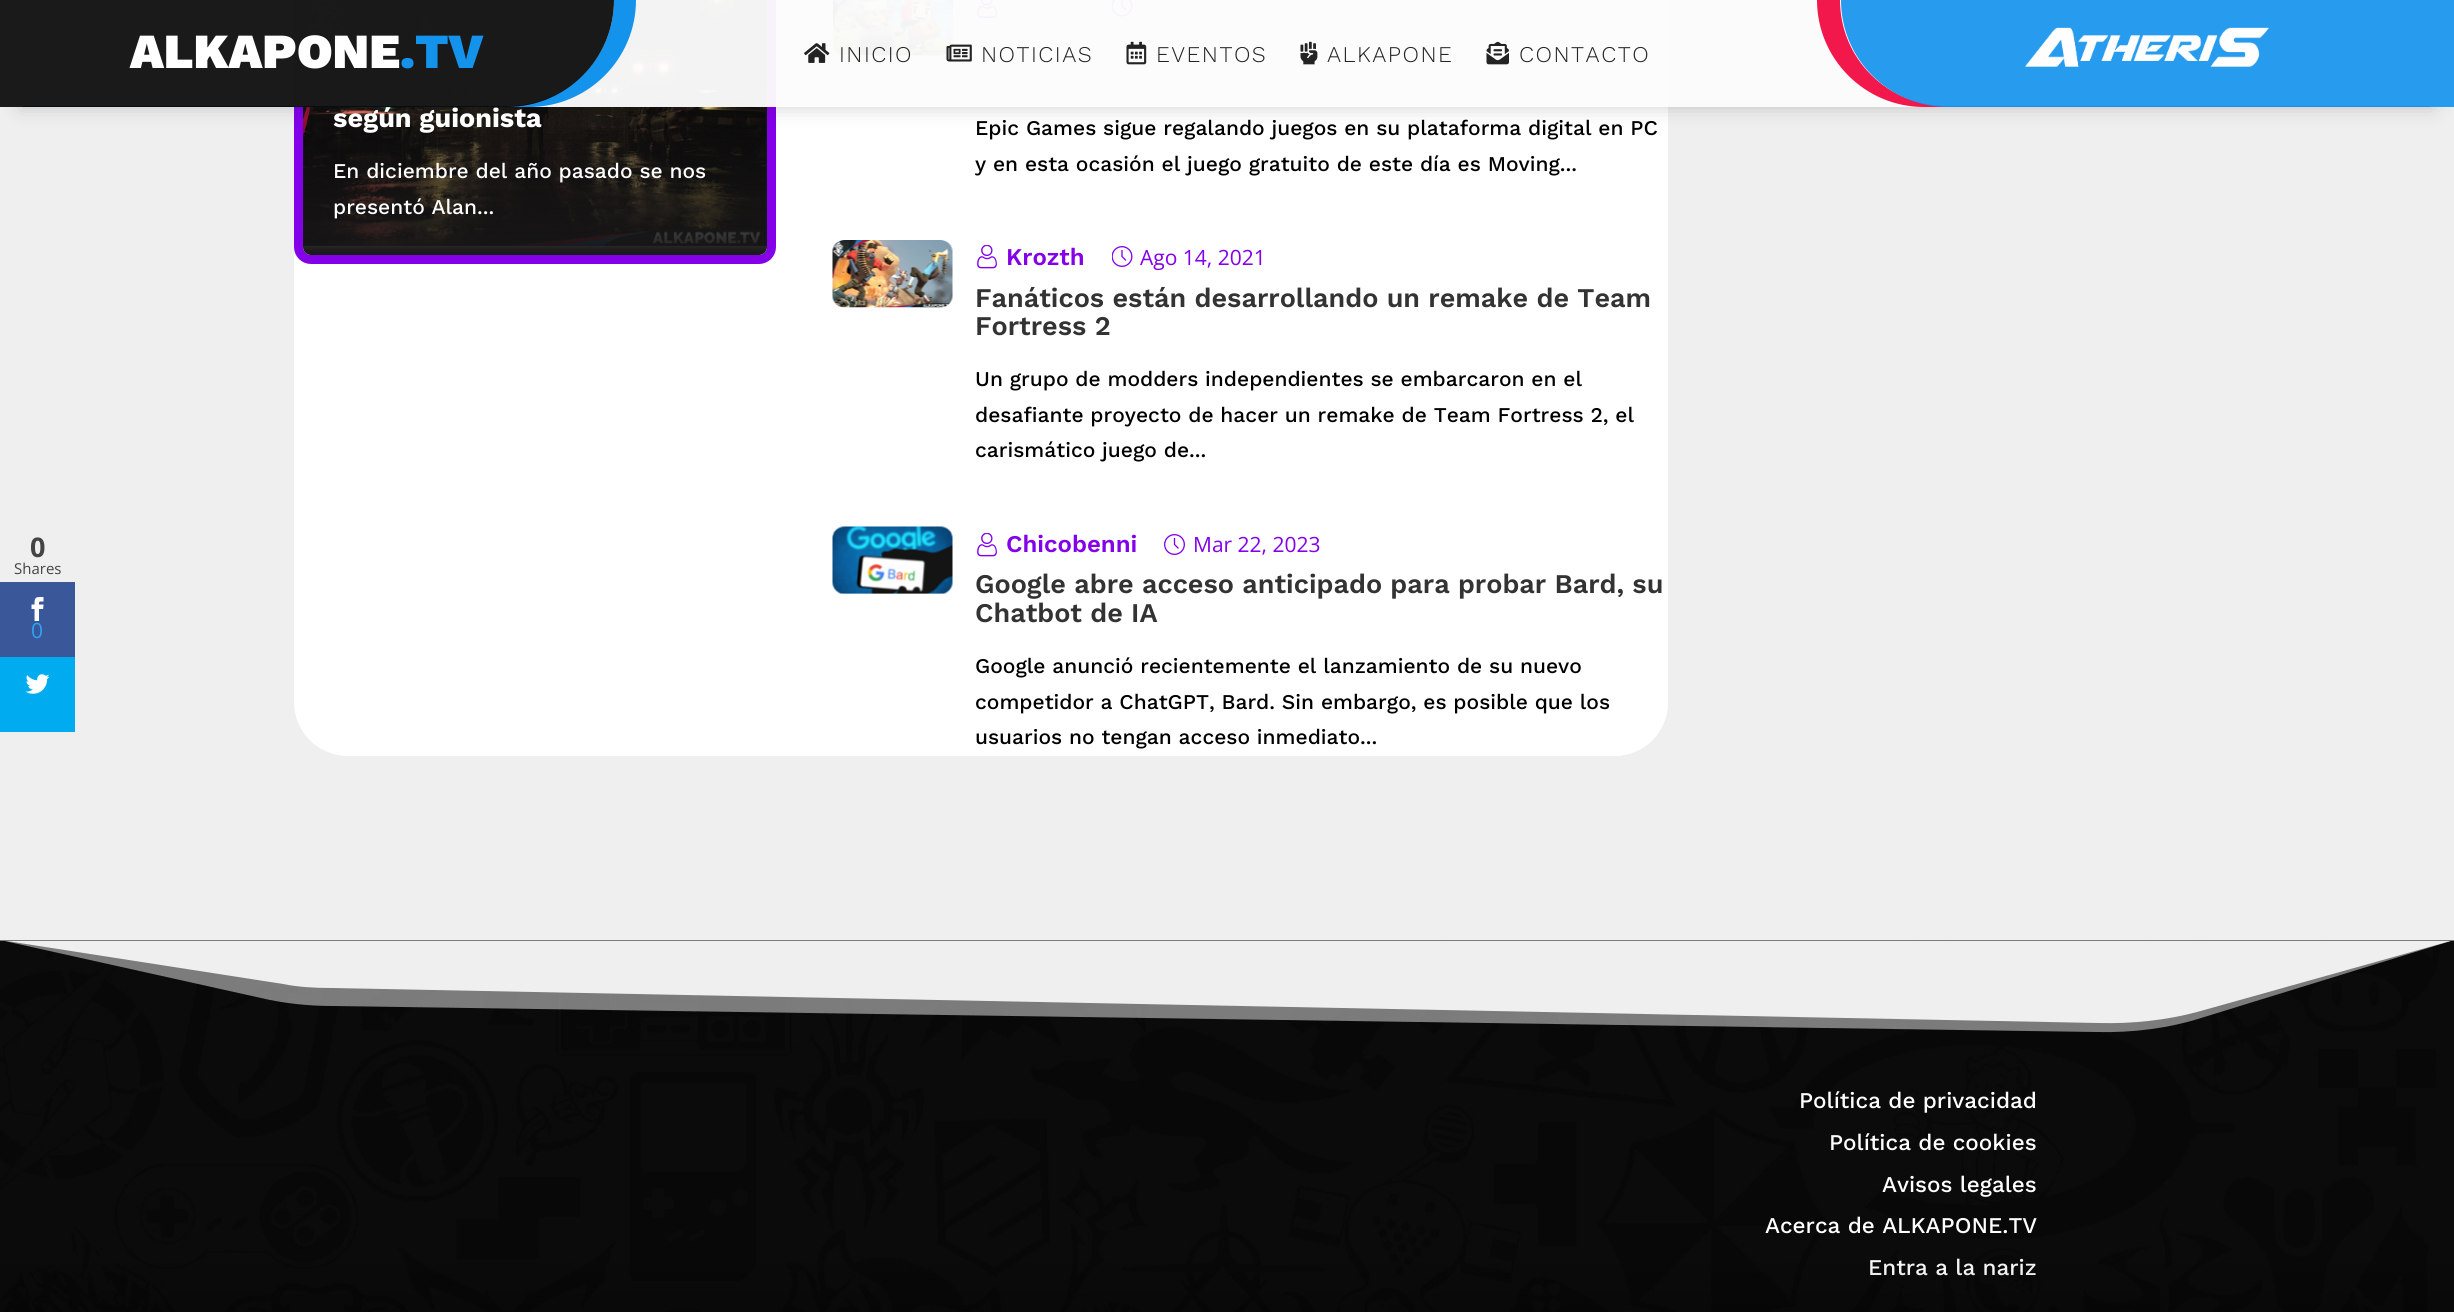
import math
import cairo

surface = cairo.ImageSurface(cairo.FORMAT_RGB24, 2454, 1312)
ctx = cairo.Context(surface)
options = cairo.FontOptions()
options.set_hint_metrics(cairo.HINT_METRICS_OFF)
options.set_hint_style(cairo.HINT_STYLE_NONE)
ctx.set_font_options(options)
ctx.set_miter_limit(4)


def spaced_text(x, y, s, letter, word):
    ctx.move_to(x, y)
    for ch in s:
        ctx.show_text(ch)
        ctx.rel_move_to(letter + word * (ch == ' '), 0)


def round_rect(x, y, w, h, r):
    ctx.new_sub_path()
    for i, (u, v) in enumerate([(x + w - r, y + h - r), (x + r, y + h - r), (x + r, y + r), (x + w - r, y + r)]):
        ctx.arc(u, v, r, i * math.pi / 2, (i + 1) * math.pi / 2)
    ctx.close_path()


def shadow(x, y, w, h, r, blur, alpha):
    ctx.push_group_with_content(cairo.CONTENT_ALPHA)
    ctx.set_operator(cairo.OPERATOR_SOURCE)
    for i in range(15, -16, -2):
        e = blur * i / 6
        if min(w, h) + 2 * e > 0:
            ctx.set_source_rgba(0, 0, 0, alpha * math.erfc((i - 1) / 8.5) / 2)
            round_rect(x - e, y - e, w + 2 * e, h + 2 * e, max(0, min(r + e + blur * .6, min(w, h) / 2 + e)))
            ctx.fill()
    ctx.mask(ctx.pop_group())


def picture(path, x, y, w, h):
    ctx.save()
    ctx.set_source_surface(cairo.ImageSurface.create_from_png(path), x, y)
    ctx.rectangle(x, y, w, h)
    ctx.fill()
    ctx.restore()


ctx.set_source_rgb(0.937, 0.937, 0.937)
ctx.paint()
ctx.select_font_face("Open Sans", cairo.FONT_SLANT_NORMAL, cairo.FONT_WEIGHT_BOLD)
ctx.set_font_size(27)
ctx.set_source_rgb(0.267, 0.267, 0.267)
ctx.move_to(30, 557)
ctx.show_text("0")
ctx.select_font_face("Open Sans")
ctx.set_font_size(15)
ctx.move_to(14, 574)
ctx.show_text("Shares")
ctx.set_source_rgb(0.227, 0.341, 0.604)
ctx.rectangle(0, 582, 75, 75)
ctx.fill()
picture("img1.png", 31, 597, 13, 24)
ctx.set_font_size(21)
ctx.set_source_rgb(0.18, 0.639, 0.949)
ctx.move_to(31, 638)
ctx.show_text("0")
ctx.set_source_rgb(0, 0.671, 0.941)
ctx.rectangle(0, 657, 75, 75)
ctx.fill()
picture("img2.png", 25, 674, 25, 20)
ctx.set_source_rgb(1, 1, 1)
round_rect(294, -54, 1374, 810, 54)
ctx.fill()
round_rect(298.5, -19.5, 473, 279, 12.5)
ctx.set_source_rgb(0.514, 0, 0.914)
ctx.set_line_width(9)
ctx.stroke()
picture("img9.png", 303, 0, 464, 246)
gradient = cairo.LinearGradient(535, 255, 535, -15)
gradient.add_color_stop_rgba(0, 0.09, 0.086, 0.086, 1)
gradient.add_color_stop_rgba(0.5, 0.09, 0.086, 0.086, 0)
ctx.set_source(gradient)
round_rect(303, -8, 464, 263, 8)
ctx.fill()
picture("img10.png", 334, 11, 19, 21)
picture("img11.png", 458, 11, 21, 21)
picture("img12.png", 833, 0, 120, 56)
picture("img13.png", 977, 0, 20, 18)
picture("img14.png", 1112, 0, 21, 17)
ctx.save()
ctx.set_fill_rule(cairo.FILL_RULE_EVEN_ODD)
ctx.new_path()
ctx.move_to(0, 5)
ctx.line_to(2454, 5)
ctx.line_to(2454, 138)
ctx.line_to(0, 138)
ctx.close_path()
ctx.move_to(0, 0)
ctx.line_to(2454, 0)
ctx.line_to(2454, 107)
ctx.line_to(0, 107)
ctx.close_path()
ctx.clip()
ctx.set_source_rgb(0, 0, 0)
shadow(21, 39, 2412, 65, 0, 11, 0.25)
ctx.restore()
ctx.set_source_rgba(0.988, 0.988, 0.988, 0.96)
ctx.rectangle(0, 0, 2454, 107)
ctx.fill()
ctx.set_source_rgb(0.082, 0.576, 0.929)
ctx.new_path()
ctx.move_to(23, 106)
ctx.line_to(23, 107)
ctx.line_to(529, 107)
ctx.curve_to(588, 107, 636, 59, 636, 0)
ctx.line_to(614, 0)
ctx.curve_to(614, 59, 566, 106, 507, 106)
ctx.close_path()
ctx.fill()
ctx.set_source_rgba(0.008, 0.008, 0.008, 0.9)
ctx.new_path()
ctx.move_to(0, 0)
ctx.line_to(614, 0)
ctx.curve_to(614, 59, 566, 107, 507, 107)
ctx.line_to(0, 107)
ctx.close_path()
ctx.fill()
ctx.select_font_face("Work Sans Black")
ctx.set_font_size(49)
ctx.set_source_rgb(1, 1, 1)
ctx.move_to(130, 68)
ctx.show_text("ALKAPONE")
ctx.set_source_rgb(0.082, 0.576, 0.929)
ctx.move_to(400, 68)
ctx.show_text(".TV")
picture("img3.png", 804, 43, 26, 20)
ctx.select_font_face("Work Sans Light")
ctx.set_font_size(22.5)
ctx.set_source_rgb(0.137, 0.137, 0.137)
spaced_text(839, 62, "INICIO", 1.5, 0)
picture("img4.png", 946, 44, 26, 18)
spaced_text(981, 62, "NOTICIAS", 1.5, 0)
picture("img5.png", 1126, 41, 21, 24)
spaced_text(1156, 62, "EVENTOS", 1.5, 0)
picture("img6.png", 1300, 41, 18, 24)
spaced_text(1327, 62, "ALKAPONE", 1.5, 0)
picture("img7.png", 1486, 41, 23, 24)
spaced_text(1519, 62, "CONTACTO", 1.5, 0)
ctx.set_source_rgb(0.949, 0.094, 0.298)
ctx.new_path()
ctx.move_to(1817, 0)
ctx.curve_to(1817, 59, 1865, 107, 1924, 107)
ctx.line_to(2430, 107)
ctx.line_to(2430, 106)
ctx.line_to(1947, 106)
ctx.curve_to(1888, 106, 1840, 59, 1840, 0)
ctx.close_path()
ctx.fill()
ctx.set_source_rgba(0.082, 0.576, 0.929, 0.92)
ctx.new_path()
ctx.move_to(1841, 0)
ctx.line_to(2454, 0)
ctx.line_to(2454, 107)
ctx.line_to(1948, 107)
ctx.curve_to(1889, 107, 1841, 59, 1841, 0)
ctx.close_path()
ctx.fill()
picture("img8.png", 2025, 27, 244, 40)
ctx.select_font_face("Work Sans", cairo.FONT_SLANT_NORMAL, cairo.FONT_WEIGHT_BOLD)
ctx.set_font_size(27)
ctx.set_source_rgb(1, 1, 1)
ctx.move_to(333, 127)
ctx.show_text("según guionista")
ctx.select_font_face("Work Sans Medium")
ctx.set_font_size(21)
ctx.move_to(333, 178)
ctx.show_text("En diciembre del año pasado se nos")
ctx.move_to(333, 214)
ctx.show_text("presentó Alan...")
ctx.set_source_rgb(0, 0, 0)
ctx.move_to(975, 135)
ctx.show_text("Epic Games sigue regalando juegos en su plataforma digital en PC")
ctx.move_to(975, 171)
ctx.show_text("y en esta ocasión el juego gratuito de este día es Moving...")
picture("img15.png", 832, 240, 121, 68)
picture("img16.png", 977, 245, 20, 24)
ctx.select_font_face("Work Sans SemiBold")
ctx.set_font_size(24)
ctx.set_source_rgb(0.514, 0, 0.914)
ctx.move_to(1006, 265)
ctx.show_text("Krozth")
picture("img17.png", 1112, 246, 21, 21)
ctx.select_font_face("Open Sans")
ctx.set_font_size(21)
ctx.move_to(1140, 265)
ctx.show_text("Ago 14, 2021")
ctx.select_font_face("Work Sans SemiBold")
ctx.set_font_size(27)
ctx.set_source_rgb(0.2, 0.2, 0.2)
ctx.move_to(975, 307)
ctx.show_text("Fanáticos están desarrollando un remake de Team")
ctx.move_to(975, 335)
ctx.show_text("Fortress 2")
ctx.select_font_face("Work Sans Medium")
ctx.set_font_size(21)
ctx.set_source_rgb(0, 0, 0)
ctx.move_to(975, 386)
ctx.show_text("Un grupo de modders independientes se embarcaron en el")
ctx.move_to(975, 422)
ctx.show_text("desafiante proyecto de hacer un remake de Team Fortress 2, el")
ctx.move_to(975, 457)
ctx.show_text("carismático juego de...")
ctx.save()
round_rect(821, 515, 847, 241, 15)
ctx.clip()
ctx.set_source_rgb(1, 1, 1)
ctx.new_path()
ctx.move_to(836, 515)
ctx.line_to(1653, 515)
ctx.curve_to(1661.5, 515, 1668, 521.5, 1668, 530)
ctx.line_to(1668, 702)
ctx.curve_to(1668, 732, 1644, 756, 1614, 756)
ctx.line_to(836, 756)
ctx.curve_to(827.5, 756, 821, 749.5, 821, 741)
ctx.line_to(821, 530)
ctx.curve_to(821, 521.5, 827.5, 515, 836, 515)
ctx.close_path()
ctx.fill()
ctx.restore()
picture("img18.png", 832, 526, 121, 68)
picture("img16.png", 977, 533, 20, 24)
ctx.select_font_face("Work Sans SemiBold")
ctx.set_font_size(24)
ctx.set_source_rgb(0.514, 0, 0.914)
ctx.move_to(1006, 552)
ctx.show_text("Chicobenni")
picture("img19.png", 1164, 534, 21, 21)
ctx.select_font_face("Open Sans")
ctx.set_font_size(21)
ctx.move_to(1193, 552)
ctx.show_text("Mar 22, 2023")
ctx.select_font_face("Work Sans SemiBold")
ctx.set_font_size(27)
ctx.set_source_rgb(0.2, 0.2, 0.2)
ctx.move_to(975, 593)
ctx.show_text("Google abre acceso anticipado para probar Bard, su")
ctx.move_to(975, 622)
ctx.show_text("Chatbot de IA")
ctx.select_font_face("Work Sans Medium")
ctx.set_font_size(21)
ctx.set_source_rgb(0, 0, 0)
ctx.move_to(975, 673)
ctx.show_text("Google anunció recientemente el lanzamiento de su nuevo")
ctx.move_to(975, 709)
ctx.show_text("competidor a ChatGPT, Bard. Sin embargo, es posible que los")
ctx.move_to(975, 744)
ctx.show_text("usuarios no tengan acceso inmediato...")
picture("img20.png", 0, 940, 2454, 372)
ctx.save()
ctx.rectangle(0, 941, 2454, 97)
ctx.clip()
ctx.set_source_rgba(0.937, 0.937, 0.937, 0.5)
ctx.new_path()
ctx.move_to(2096, 1032)
ctx.line_to(332, 1006)
ctx.curve_to(307, 1006, 282, 1003, 261, 998)
ctx.line_to(0, 940)
ctx.line_to(2454, 940)
ctx.line_to(2201, 1018)
ctx.curve_to(2170, 1028, 2133, 1033, 2096, 1032)
ctx.close_path()
ctx.fill()
ctx.set_source_rgb(0.937, 0.937, 0.937)
ctx.new_path()
ctx.move_to(2098, 1023)
ctx.line_to(331, 988)
ctx.curve_to(314, 988, 298, 987, 283, 984)
ctx.line_to(0, 940)
ctx.line_to(2454, 940)
ctx.line_to(2197, 1012)
ctx.curve_to(2167, 1020, 2133, 1024, 2098, 1023)
ctx.close_path()
ctx.fill()
ctx.restore()
ctx.set_font_size(22.5)
ctx.set_source_rgb(1, 1, 1)
ctx.move_to(1799, 1108)
ctx.show_text("Política de privacidad")
ctx.move_to(1829, 1150)
ctx.show_text("Política de cookies")
ctx.move_to(1882, 1192)
ctx.show_text("Avisos legales")
ctx.move_to(1765, 1233)
ctx.show_text("Acerca de ALKAPONE.TV")
ctx.move_to(1868, 1275)
ctx.show_text("Entra a la nariz")
ctx.set_source_rgb(0, 0, 0)
shadow(-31, 1299, 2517, 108, 0, 31.5, 0.3)
surface.write_to_png("page.png")
